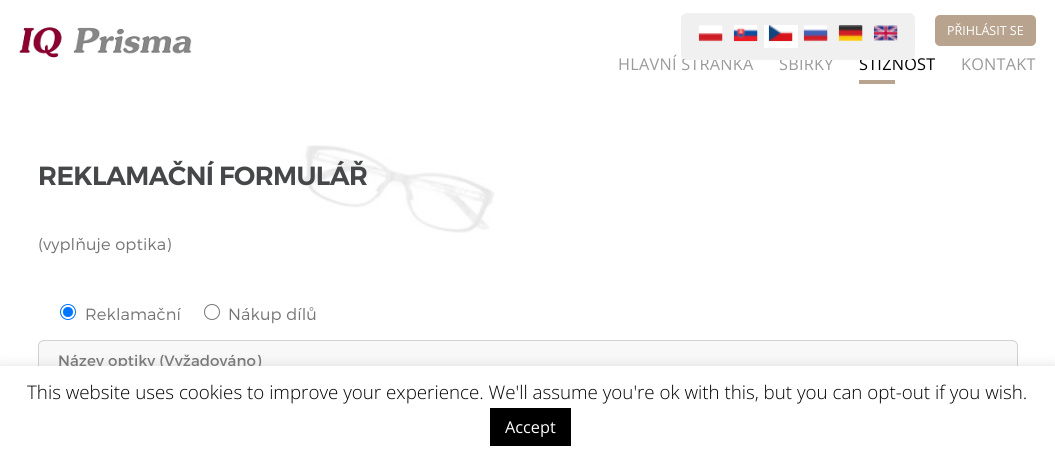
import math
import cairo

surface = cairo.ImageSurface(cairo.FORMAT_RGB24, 1055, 461)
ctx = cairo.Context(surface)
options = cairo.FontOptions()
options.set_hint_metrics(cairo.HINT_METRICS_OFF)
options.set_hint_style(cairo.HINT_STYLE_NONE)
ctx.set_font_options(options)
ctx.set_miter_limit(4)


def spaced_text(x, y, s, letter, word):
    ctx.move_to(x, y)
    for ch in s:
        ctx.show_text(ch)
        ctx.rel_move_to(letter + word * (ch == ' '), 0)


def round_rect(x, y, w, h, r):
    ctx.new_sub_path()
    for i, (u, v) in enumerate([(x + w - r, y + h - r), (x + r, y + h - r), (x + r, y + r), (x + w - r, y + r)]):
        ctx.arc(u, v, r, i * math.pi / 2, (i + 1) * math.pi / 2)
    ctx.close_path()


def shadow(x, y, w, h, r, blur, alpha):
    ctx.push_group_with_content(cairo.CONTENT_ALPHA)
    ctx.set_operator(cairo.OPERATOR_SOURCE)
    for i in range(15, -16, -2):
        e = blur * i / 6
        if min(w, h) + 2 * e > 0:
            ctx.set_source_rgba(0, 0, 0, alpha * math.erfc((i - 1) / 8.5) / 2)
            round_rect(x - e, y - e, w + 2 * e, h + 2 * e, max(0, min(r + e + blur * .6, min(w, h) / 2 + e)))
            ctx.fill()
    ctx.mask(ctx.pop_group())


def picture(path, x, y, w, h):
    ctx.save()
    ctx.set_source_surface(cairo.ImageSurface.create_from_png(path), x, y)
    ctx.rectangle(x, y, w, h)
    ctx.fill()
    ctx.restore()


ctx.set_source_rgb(1, 1, 1)
ctx.paint()
picture("img1.png", 19, 27, 173, 31)
ctx.select_font_face("Open Sans")
ctx.set_font_size(16.25)
ctx.set_source_rgb(0.604, 0.604, 0.604)
spaced_text(618, 70, "HLAVNÍ STRÁNKA", 0.25, 0)
spaced_text(779, 70, "SBÍRKY", 0.25, 0)
ctx.set_source_rgb(0, 0, 0)
spaced_text(859, 70, "STÍŽNOST", 0.25, 0)
ctx.set_source_rgb(0.941, 0.941, 0.941)
round_rect(681, 13, 234, 47, 6)
ctx.fill()
picture("img2.png", 698, 25, 25, 17)
picture("img3.png", 733, 25, 25, 17)
ctx.set_source_rgb(1, 1, 1)
ctx.rectangle(764, 25, 34, 23)
ctx.fill()
picture("img4.png", 768, 25, 25, 17)
picture("img5.png", 803, 25, 25, 17)
picture("img6.png", 838, 25, 25, 17)
picture("img7.png", 873, 25, 25, 16)
ctx.set_source_rgb(0.722, 0.643, 0.557)
round_rect(935, 15, 101, 31, 5)
ctx.fill()
ctx.set_font_size(12.5)
ctx.set_source_rgb(1, 1, 1)
ctx.move_to(947, 35)
ctx.show_text("PŘIHLÁSIT SE")
ctx.set_source_rgb(0.722, 0.643, 0.557)
ctx.rectangle(859, 80, 36, 4)
ctx.fill()
ctx.set_font_size(16.25)
ctx.set_source_rgb(0.604, 0.604, 0.604)
spaced_text(961, 70, "KONTAKT", 0.25, 0)
picture("img8.png", 296, 145, 199, 88)
ctx.select_font_face("Montserrat SemiBold")
ctx.set_font_size(26.25)
ctx.set_source_rgb(0.275, 0.278, 0.286)
spaced_text(38, 185, "REKLAMAČNÍ FORMULÁŘ", -0.6, 0)
ctx.select_font_face("Montserrat Light")
ctx.set_font_size(16.25)
ctx.set_source_rgb(0.459, 0.459, 0.459)
spaced_text(38, 250, "(vyplňuje optika)", 0.1, 0)
ctx.new_path()
ctx.arc(68, 312, 7.5, 0, 2 * math.pi)
ctx.set_source_rgb(0, 0.459, 1)
ctx.set_line_width(1)
ctx.stroke()
ctx.arc(68, 312, 5, 0, 2 * math.pi)
ctx.fill()
ctx.set_source_rgb(0.459, 0.459, 0.459)
spaced_text(85, 320, "Reklamační", 0.1, 0)
ctx.new_path()
ctx.arc(212, 312, 7.5, 0, 2 * math.pi)
ctx.set_source_rgb(0.463, 0.463, 0.463)
ctx.stroke()
ctx.set_source_rgb(0.459, 0.459, 0.459)
spaced_text(228, 320, "Nákup dílů", 0.1, 0)
ctx.set_source_rgb(0.969, 0.969, 0.969)
round_rect(38.5, 340.5, 979, 38, 5.5)
ctx.fill_preserve()
ctx.set_source_rgb(0.82, 0.82, 0.82)
ctx.stroke()
ctx.select_font_face("Montserrat")
ctx.set_font_size(15)
ctx.set_source_rgb(0.459, 0.459, 0.459)
spaced_text(58, 366, "Název optiky (Vyžadováno)", 0.1, 0)
ctx.set_source_rgb(0.675, 0.671, 0.671)
shadow(0, 365, 1055, 95, 0, 6, 0.3)
ctx.set_source_rgb(1, 1, 1)
ctx.rectangle(0, 366, 1055, 95)
ctx.fill()
ctx.select_font_face("Open Sans Light")
ctx.set_font_size(18.75)
ctx.set_source_rgb(0, 0, 0)
ctx.move_to(27, 399)
ctx.show_text("This website uses cookies to improve your experience. We'll assume you're ok with this, but you can opt-out if you wish.")
ctx.rectangle(490, 408, 81, 38)
ctx.fill()
ctx.select_font_face("Open Sans")
ctx.set_font_size(16.25)
ctx.set_source_rgb(1, 1, 1)
ctx.move_to(505, 433)
ctx.show_text("Accept")
surface.write_to_png("page.png")
